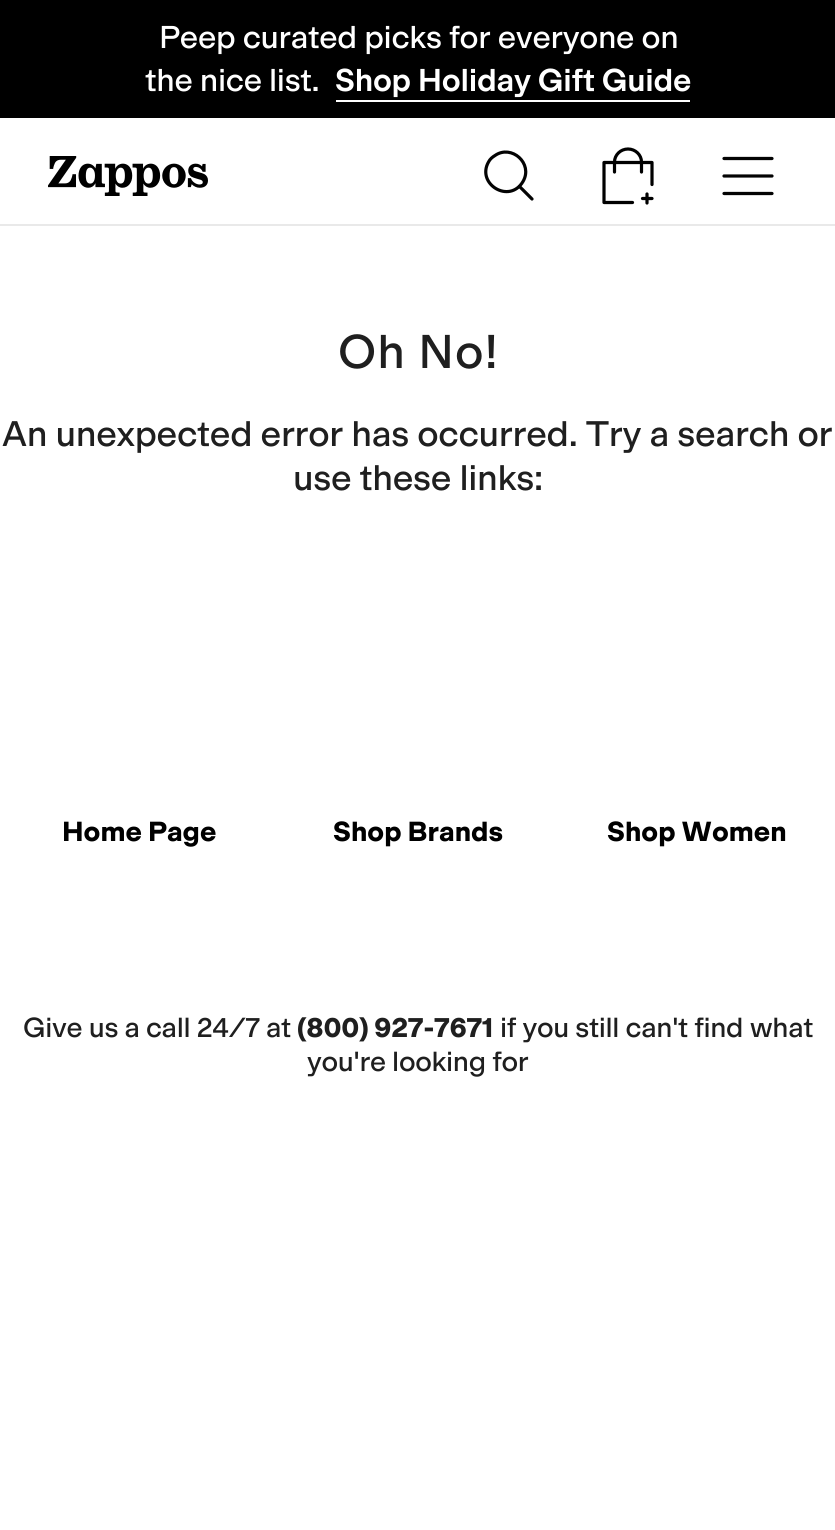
import math
import cairo

surface = cairo.ImageSurface(cairo.FORMAT_RGB24, 835, 1530)
ctx = cairo.Context(surface)
options = cairo.FontOptions()
options.set_hint_metrics(cairo.HINT_METRICS_OFF)
options.set_hint_style(cairo.HINT_STYLE_NONE)
ctx.set_font_options(options)
ctx.set_miter_limit(4)


def spaced_text(x, y, s, letter, word):
    ctx.move_to(x, y)
    for ch in s:
        ctx.show_text(ch)
        ctx.rel_move_to(letter + word * (ch == ' '), 0)


def picture(path, x, y, w, h):
    ctx.save()
    ctx.set_source_surface(cairo.ImageSurface.create_from_png(path), x, y)
    ctx.rectangle(x, y, w, h)
    ctx.fill()
    ctx.restore()


ctx.set_source_rgb(1, 1, 1)
ctx.paint()
ctx.set_source_rgb(0, 0, 0)
ctx.rectangle(0, 0, 835, 118)
ctx.fill()
ctx.select_font_face("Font")
ctx.set_font_size(32)
ctx.set_source_rgb(1, 1, 1)
spaced_text(159, 48, "Peep curated picks for everyone on", -0.3, 0)
spaced_text(145, 91, "the nice list.", -0.3, 0)
ctx.select_font_face("Font Medium")
spaced_text(335, 91, "Shop Holiday Gift Guide", -0.3, 0)
ctx.rectangle(336, 100, 354, 2)
ctx.fill()
ctx.set_source_rgb(0.914, 0.914, 0.914)
ctx.rectangle(0, 224, 835, 2)
ctx.fill()
picture("img1.png", 48, 156, 160, 40)
ctx.new_path()
ctx.move_to(488.5, 162)
ctx.curve_to(476, 184, 509.5, 204.5, 523, 181.5)
ctx.curve_to(533.5, 163.5, 511.5, 144, 495, 155.5)
ctx.curve_to(492.5, 157, 490, 159, 488.5, 162)
ctx.set_source_rgb(0.012, 0.012, 0.012)
ctx.set_line_width(3.2)
ctx.set_line_cap(cairo.LINE_CAP_ROUND)
ctx.set_line_join(cairo.LINE_JOIN_ROUND)
ctx.stroke()
ctx.new_path()
ctx.move_to(519.5, 186.5)
ctx.line_to(532, 199)
ctx.set_line_join(cairo.LINE_JOIN_MITER)
ctx.stroke()
ctx.new_path()
ctx.move_to(641.5, 172)
ctx.line_to(641.5, 162)
ctx.curve_to(641.5, 155, 635.5, 149, 628, 149)
ctx.curve_to(620.5, 149, 614.5, 155, 614.5, 162)
ctx.line_to(614.5, 172)
ctx.move_to(642.5, 198.5)
ctx.line_to(652, 198.5)
ctx.move_to(647, 194)
ctx.line_to(647, 203)
ctx.move_to(652, 184.5)
ctx.line_to(652, 162.5)
ctx.line_to(604, 162.5)
ctx.line_to(604, 202.5)
ctx.line_to(632.5, 202.5)
ctx.set_source_rgb(0, 0, 0)
ctx.set_line_join(cairo.LINE_JOIN_ROUND)
ctx.stroke()
ctx.new_path()
ctx.move_to(724, 193.5)
ctx.line_to(772, 193.5)
ctx.move_to(724, 176)
ctx.line_to(772, 176)
ctx.move_to(724, 158.5)
ctx.line_to(772, 158.5)
ctx.set_source_rgb(0.012, 0.012, 0.012)
ctx.set_line_join(cairo.LINE_JOIN_MITER)
ctx.stroke()
ctx.select_font_face("Font")
ctx.set_font_size(48)
ctx.set_source_rgb(0.122, 0.122, 0.122)
spaced_text(338, 368, "Oh No!", 1, 0)
ctx.set_font_size(36)
spaced_text(2, 446, "An unexpected error has occurred. Try a search or", -0.3, 0)
spaced_text(293, 490, "use these links:", -0.3, 0)
ctx.select_font_face("Font", cairo.FONT_SLANT_NORMAL, cairo.FONT_WEIGHT_BOLD)
ctx.set_font_size(28)
ctx.set_source_rgb(0, 0, 0)
ctx.move_to(62, 841)
ctx.show_text("Home Page")
ctx.move_to(333, 841)
ctx.show_text("Shop Brands")
ctx.move_to(607, 841)
ctx.show_text("Shop Women")
ctx.select_font_face("Font")
ctx.set_source_rgb(0.122, 0.122, 0.122)
spaced_text(23, 1037, "Give us a call 24/7 at", -0.3, 0)
ctx.select_font_face("Font", cairo.FONT_SLANT_NORMAL, cairo.FONT_WEIGHT_BOLD)
spaced_text(297, 1037, "(800) 927-7671", -0.3, 0)
ctx.select_font_face("Font")
spaced_text(500, 1037, "if you still can't find what", -0.3, 0)
spaced_text(307, 1071, "you're looking for", -0.3, 0)
surface.write_to_png("page.png")
